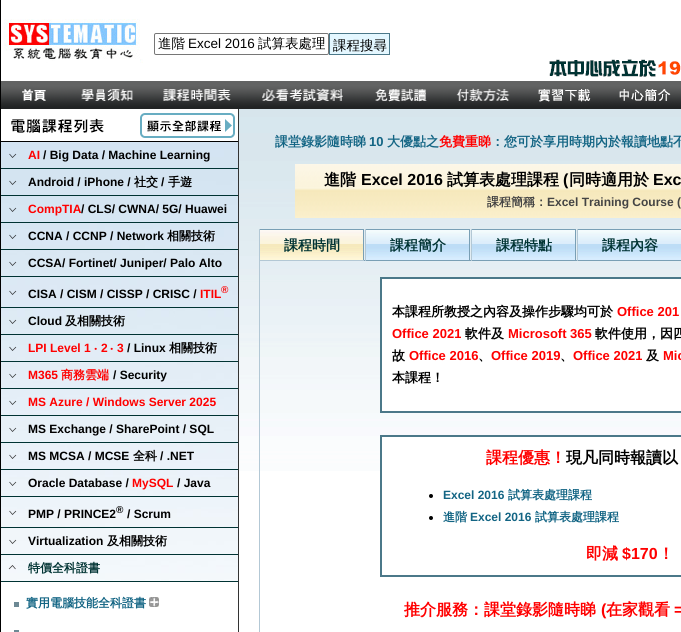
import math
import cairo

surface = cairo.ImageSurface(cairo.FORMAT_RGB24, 681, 632)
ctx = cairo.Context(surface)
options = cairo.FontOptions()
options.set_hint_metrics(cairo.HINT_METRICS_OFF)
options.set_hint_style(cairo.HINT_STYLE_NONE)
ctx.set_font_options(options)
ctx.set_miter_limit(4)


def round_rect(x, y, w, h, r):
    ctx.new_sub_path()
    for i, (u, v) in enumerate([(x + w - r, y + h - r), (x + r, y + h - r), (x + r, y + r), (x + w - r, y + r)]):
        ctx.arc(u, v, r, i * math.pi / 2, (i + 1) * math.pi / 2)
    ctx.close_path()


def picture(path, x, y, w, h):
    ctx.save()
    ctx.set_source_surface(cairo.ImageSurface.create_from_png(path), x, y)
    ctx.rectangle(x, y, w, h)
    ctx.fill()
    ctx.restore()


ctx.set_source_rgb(0, 0, 0)
ctx.paint()
ctx.set_source_rgb(1, 1, 1)
ctx.rectangle(1, 0, 680, 81)
ctx.fill()
picture("img1.png", 4, 19, 139, 44)
round_rect(154.5, 33.5, 174, 21, 1.5)
ctx.set_source_rgb(0.463, 0.463, 0.463)
ctx.set_line_width(1)
ctx.stroke()
ctx.select_font_face("WenQuanYi Zen Hei Medium")
ctx.set_font_size(13.5)
ctx.set_source_rgb(0, 0, 0)
ctx.move_to(158, 48)
ctx.show_text("進階")
ctx.select_font_face("Liberation Sans")
ctx.move_to(188, 48)
ctx.show_text("Excel 2016")
ctx.select_font_face("WenQuanYi Zen Hei Medium")
ctx.move_to(258, 48)
ctx.show_text("試算表處理")
ctx.set_source_rgb(0.894, 0.965, 1)
ctx.rectangle(329.5, 33.5, 60, 21)
ctx.fill_preserve()
ctx.set_source_rgb(0.294, 0.471, 0.537)
ctx.stroke()
ctx.set_source_rgb(0, 0, 0)
ctx.move_to(333, 50)
ctx.show_text("課程搜尋")
picture("img2.png", 549, 59, 132, 18)
picture("img3.png", 1, 81, 64, 28)
picture("img4.png", 65, 81, 83, 28)
picture("img5.png", 148, 81, 98, 28)
picture("img6.png", 246, 81, 113, 28)
picture("img7.png", 359, 81, 84, 28)
picture("img8.png", 443, 81, 81, 28)
picture("img9.png", 524, 81, 81, 28)
picture("img10.png", 605, 81, 76, 28)
picture("img11.png", 1, 142, 237, 439)
picture("img12.png", 1, 109, 136, 33)
picture("img13.png", 137, 109, 101, 33)
ctx.set_source_rgb(0, 0.2, 0.2)
ctx.rectangle(1, 168, 237, 1)
ctx.fill()
ctx.new_path()
ctx.move_to(16, 154)
ctx.line_to(12.5, 157.5)
ctx.line_to(9.5, 154)
ctx.set_source_rgb(0.165, 0.18, 0.192)
ctx.set_line_width(0.7)
ctx.stroke()
ctx.select_font_face("Liberation Sans", cairo.FONT_SLANT_NORMAL, cairo.FONT_WEIGHT_BOLD)
ctx.set_font_size(12)
ctx.set_source_rgb(1, 0, 0)
ctx.move_to(28, 159)
ctx.show_text("AI")
ctx.set_source_rgb(0, 0, 0)
ctx.move_to(43, 159)
ctx.show_text("/ Big Data / Machine Learning")
ctx.set_source_rgb(0, 0.2, 0.2)
ctx.rectangle(1, 195, 237, 1)
ctx.fill()
ctx.new_path()
ctx.move_to(16, 181)
ctx.line_to(12.5, 184.5)
ctx.line_to(9.5, 181)
ctx.set_source_rgb(0.165, 0.18, 0.188)
ctx.stroke()
ctx.set_source_rgb(0, 0, 0)
ctx.move_to(28, 186)
ctx.show_text("Android / iPhone /")
ctx.select_font_face("WenQuanYi Zen Hei", cairo.FONT_SLANT_NORMAL, cairo.FONT_WEIGHT_BOLD)
ctx.move_to(134, 186)
ctx.show_text("社交")
ctx.select_font_face("Liberation Sans", cairo.FONT_SLANT_NORMAL, cairo.FONT_WEIGHT_BOLD)
ctx.move_to(161, 186)
ctx.show_text("/")
ctx.select_font_face("WenQuanYi Zen Hei", cairo.FONT_SLANT_NORMAL, cairo.FONT_WEIGHT_BOLD)
ctx.move_to(168, 186)
ctx.show_text("手遊")
ctx.set_source_rgb(0, 0.2, 0.2)
ctx.rectangle(1, 222, 237, 1)
ctx.fill()
ctx.new_path()
ctx.move_to(16, 208)
ctx.line_to(12.5, 211.5)
ctx.line_to(9.5, 208)
ctx.move_to(16, 235)
ctx.line_to(12.5, 238.5)
ctx.line_to(9.5, 235)
ctx.set_source_rgb(0.169, 0.18, 0.192)
ctx.stroke()
ctx.select_font_face("Liberation Sans", cairo.FONT_SLANT_NORMAL, cairo.FONT_WEIGHT_BOLD)
ctx.set_source_rgb(1, 0, 0)
ctx.move_to(28, 213)
ctx.show_text("CompTIA")
ctx.set_source_rgb(0, 0, 0)
ctx.move_to(81, 213)
ctx.show_text("/ CLS/ CWNA/ 5G/ Huawei")
ctx.set_source_rgb(0, 0.2, 0.2)
ctx.rectangle(1, 249, 237, 1)
ctx.fill()
ctx.set_source_rgb(0, 0, 0)
ctx.move_to(28, 240)
ctx.show_text("CCNA / CCNP / Network")
ctx.select_font_face("WenQuanYi Zen Hei", cairo.FONT_SLANT_NORMAL, cairo.FONT_WEIGHT_BOLD)
ctx.move_to(167, 240)
ctx.show_text("相關技術")
ctx.set_source_rgb(0, 0.2, 0.2)
ctx.rectangle(1, 276, 237, 1)
ctx.fill()
ctx.new_path()
ctx.move_to(16, 262)
ctx.line_to(12.5, 265.5)
ctx.line_to(9.5, 262)
ctx.move_to(16, 291)
ctx.line_to(12.5, 294.5)
ctx.line_to(9.5, 291)
ctx.set_source_rgb(0.173, 0.18, 0.192)
ctx.stroke()
ctx.select_font_face("Liberation Sans", cairo.FONT_SLANT_NORMAL, cairo.FONT_WEIGHT_BOLD)
ctx.set_source_rgb(0, 0, 0)
ctx.move_to(28, 267)
ctx.show_text("CCSA/ Fortinet/ Juniper/ Palo Alto")
ctx.set_source_rgb(0, 0.2, 0.2)
ctx.rectangle(1, 307, 237, 1)
ctx.fill()
ctx.set_source_rgb(0, 0, 0)
ctx.move_to(28, 298)
ctx.show_text("CISA / CISM / CISSP / CRISC /")
ctx.set_source_rgb(1, 0, 0)
ctx.move_to(200, 298)
ctx.show_text("ITIL")
ctx.set_font_size(10)
ctx.move_to(221, 293)
ctx.show_text("®")
ctx.set_source_rgb(0, 0.2, 0.2)
ctx.rectangle(1, 334, 237, 1)
ctx.fill()
ctx.new_path()
ctx.move_to(16, 320)
ctx.line_to(12.5, 323.5)
ctx.line_to(9.5, 320)
ctx.set_source_rgb(0.173, 0.184, 0.192)
ctx.stroke()
ctx.set_font_size(12)
ctx.set_source_rgb(0, 0, 0)
ctx.move_to(28, 325)
ctx.show_text("Cloud")
ctx.select_font_face("WenQuanYi Zen Hei", cairo.FONT_SLANT_NORMAL, cairo.FONT_WEIGHT_BOLD)
ctx.move_to(65, 325)
ctx.show_text("及相關技術")
ctx.set_source_rgb(0, 0.2, 0.2)
ctx.rectangle(1, 361, 237, 1)
ctx.fill()
ctx.new_path()
ctx.move_to(16, 347)
ctx.line_to(12.5, 350.5)
ctx.line_to(9.5, 347)
ctx.set_source_rgb(0.176, 0.184, 0.192)
ctx.stroke()
ctx.select_font_face("Liberation Sans", cairo.FONT_SLANT_NORMAL, cairo.FONT_WEIGHT_BOLD)
ctx.set_source_rgb(1, 0, 0)
ctx.move_to(28, 352)
ctx.show_text("LPI Level 1")
ctx.select_font_face("Noto Sans", cairo.FONT_SLANT_NORMAL, cairo.FONT_WEIGHT_BOLD)
ctx.move_to(94, 352)
ctx.show_text("‧")
ctx.select_font_face("Liberation Sans", cairo.FONT_SLANT_NORMAL, cairo.FONT_WEIGHT_BOLD)
ctx.move_to(101, 352)
ctx.show_text("2")
ctx.select_font_face("Noto Sans", cairo.FONT_SLANT_NORMAL, cairo.FONT_WEIGHT_BOLD)
ctx.move_to(110, 352)
ctx.show_text("‧")
ctx.select_font_face("Liberation Sans", cairo.FONT_SLANT_NORMAL, cairo.FONT_WEIGHT_BOLD)
ctx.move_to(117, 352)
ctx.show_text("3")
ctx.set_source_rgb(0, 0, 0)
ctx.move_to(127, 352)
ctx.show_text("/ Linux")
ctx.select_font_face("WenQuanYi Zen Hei", cairo.FONT_SLANT_NORMAL, cairo.FONT_WEIGHT_BOLD)
ctx.move_to(169, 352)
ctx.show_text("相關技術")
ctx.set_source_rgb(0, 0.2, 0.2)
ctx.rectangle(1, 388, 237, 1)
ctx.fill()
ctx.new_path()
ctx.move_to(16, 374)
ctx.line_to(12.5, 377.5)
ctx.line_to(9.5, 374)
ctx.set_source_rgb(0.18, 0.188, 0.192)
ctx.stroke()
ctx.select_font_face("Liberation Sans", cairo.FONT_SLANT_NORMAL, cairo.FONT_WEIGHT_BOLD)
ctx.set_source_rgb(1, 0, 0)
ctx.move_to(28, 379)
ctx.show_text("M365")
ctx.select_font_face("WenQuanYi Zen Hei", cairo.FONT_SLANT_NORMAL, cairo.FONT_WEIGHT_BOLD)
ctx.move_to(61, 379)
ctx.show_text("商務雲端")
ctx.select_font_face("Liberation Sans", cairo.FONT_SLANT_NORMAL, cairo.FONT_WEIGHT_BOLD)
ctx.set_source_rgb(0, 0, 0)
ctx.move_to(113, 379)
ctx.show_text("/ Security")
ctx.set_source_rgb(0, 0.2, 0.2)
ctx.rectangle(1, 415, 237, 1)
ctx.fill()
ctx.new_path()
ctx.move_to(16, 401)
ctx.line_to(12.5, 404.5)
ctx.line_to(9.5, 401)
ctx.move_to(16, 428)
ctx.line_to(12.5, 431.5)
ctx.line_to(9.5, 428)
ctx.set_source_rgb(0.18, 0.188, 0.196)
ctx.stroke()
ctx.set_source_rgb(1, 0, 0)
ctx.move_to(28, 406)
ctx.show_text("MS Azure / Windows Server 2025")
ctx.set_source_rgb(0, 0.2, 0.2)
ctx.rectangle(1, 442, 237, 1)
ctx.fill()
ctx.set_source_rgb(0, 0, 0)
ctx.move_to(28, 433)
ctx.show_text("MS Exchange / SharePoint / SQL")
ctx.set_source_rgb(0, 0.2, 0.2)
ctx.rectangle(1, 469, 237, 1)
ctx.fill()
ctx.new_path()
ctx.move_to(16, 455)
ctx.line_to(12.5, 458.5)
ctx.line_to(9.5, 455)
ctx.set_source_rgb(0.184, 0.188, 0.196)
ctx.stroke()
ctx.set_source_rgb(0, 0, 0)
ctx.move_to(28, 460)
ctx.show_text("MS MCSA / MCSE")
ctx.select_font_face("WenQuanYi Zen Hei", cairo.FONT_SLANT_NORMAL, cairo.FONT_WEIGHT_BOLD)
ctx.move_to(133, 460)
ctx.show_text("全科")
ctx.select_font_face("Liberation Sans", cairo.FONT_SLANT_NORMAL, cairo.FONT_WEIGHT_BOLD)
ctx.move_to(160, 460)
ctx.show_text("/ .NET")
ctx.set_source_rgb(0, 0.2, 0.2)
ctx.rectangle(1, 496, 237, 1)
ctx.fill()
ctx.new_path()
ctx.move_to(16, 482)
ctx.line_to(12.5, 485.5)
ctx.line_to(9.5, 482)
ctx.set_source_rgb(0.184, 0.192, 0.196)
ctx.stroke()
ctx.set_source_rgb(0, 0, 0)
ctx.move_to(28, 487)
ctx.show_text("Oracle Database /")
ctx.set_source_rgb(1, 0, 0)
ctx.move_to(132, 487)
ctx.show_text("MySQL")
ctx.set_source_rgb(0, 0, 0)
ctx.move_to(177, 487)
ctx.show_text("/ Java")
ctx.set_source_rgb(0, 0.2, 0.2)
ctx.rectangle(1, 527, 237, 1)
ctx.fill()
ctx.new_path()
ctx.move_to(16, 511)
ctx.line_to(12.5, 514.5)
ctx.line_to(9.5, 511)
ctx.move_to(16, 540)
ctx.line_to(12.5, 543.5)
ctx.line_to(9.5, 540)
ctx.set_source_rgb(0.188, 0.192, 0.196)
ctx.stroke()
ctx.set_source_rgb(0, 0, 0)
ctx.move_to(28, 518)
ctx.show_text("PMP / PRINCE2")
ctx.set_font_size(10)
ctx.move_to(116, 513)
ctx.show_text("®")
ctx.set_font_size(12)
ctx.move_to(127, 518)
ctx.show_text("/ Scrum")
ctx.set_source_rgb(0, 0.2, 0.2)
ctx.rectangle(1, 554, 237, 1)
ctx.fill()
ctx.set_source_rgb(0, 0, 0)
ctx.move_to(28, 545)
ctx.show_text("Virtualization")
ctx.select_font_face("WenQuanYi Zen Hei", cairo.FONT_SLANT_NORMAL, cairo.FONT_WEIGHT_BOLD)
ctx.move_to(107, 545)
ctx.show_text("及相關技術")
ctx.set_source_rgb(0, 0.2, 0.2)
ctx.rectangle(1, 581, 237, 1)
ctx.fill()
ctx.new_path()
ctx.move_to(9, 569)
ctx.line_to(12.5, 565.5)
ctx.line_to(15.5, 569)
ctx.set_source_rgb(0.192, 0.192, 0.196)
ctx.stroke()
ctx.set_source_rgb(0, 0.2, 0.2)
ctx.move_to(28, 572)
ctx.show_text("特價全科證書")
ctx.set_source_rgb(1, 1, 1)
ctx.rectangle(1, 582, 237, 50)
ctx.fill()
ctx.set_source_rgb(0.427, 0.537, 0.58)
ctx.rectangle(14, 602, 5, 5)
ctx.fill()
ctx.set_source_rgb(0.075, 0.396, 0.518)
ctx.move_to(26, 607)
ctx.show_text("實用電腦技能全科證書")
picture("img14.png", 149, 597, 10, 10)
ctx.set_source_rgb(0.427, 0.537, 0.58)
ctx.rectangle(14, 630, 5, 2)
ctx.fill()
ctx.set_source_rgb(1, 1, 1)
ctx.rectangle(239, 471, 442, 161)
ctx.fill()
picture("img15.png", 239, 109, 442, 362)
ctx.set_source_rgb(0.2, 0.2, 0.2)
ctx.rectangle(238, 109, 1, 523)
ctx.fill()
ctx.set_font_size(13)
ctx.set_source_rgb(0.075, 0.396, 0.518)
ctx.move_to(275, 146)
ctx.show_text("課堂錄影隨時睇")
ctx.select_font_face("Liberation Sans", cairo.FONT_SLANT_NORMAL, cairo.FONT_WEIGHT_BOLD)
ctx.move_to(369, 146)
ctx.show_text("10")
ctx.select_font_face("WenQuanYi Zen Hei", cairo.FONT_SLANT_NORMAL, cairo.FONT_WEIGHT_BOLD)
ctx.move_to(387, 146)
ctx.show_text("大優點之")
ctx.set_source_rgb(1, 0, 0)
ctx.move_to(439, 146)
ctx.show_text("免費重睇")
ctx.set_source_rgb(0.075, 0.396, 0.518)
ctx.move_to(491, 146)
ctx.show_text("：您可於享用時期內於報讀地點不")
picture("img16.png", 295, 164, 386, 54)
ctx.set_font_size(16)
ctx.set_source_rgb(0, 0, 0)
ctx.move_to(324, 185)
ctx.show_text("進階")
ctx.select_font_face("Liberation Sans", cairo.FONT_SLANT_NORMAL, cairo.FONT_WEIGHT_BOLD)
ctx.move_to(361, 185)
ctx.show_text("Excel 2016")
ctx.select_font_face("WenQuanYi Zen Hei", cairo.FONT_SLANT_NORMAL, cairo.FONT_WEIGHT_BOLD)
ctx.move_to(447, 185)
ctx.show_text("試算表處理課程")
ctx.select_font_face("Liberation Sans", cairo.FONT_SLANT_NORMAL, cairo.FONT_WEIGHT_BOLD)
ctx.move_to(563, 185)
ctx.show_text("(")
ctx.select_font_face("WenQuanYi Zen Hei", cairo.FONT_SLANT_NORMAL, cairo.FONT_WEIGHT_BOLD)
ctx.move_to(569, 185)
ctx.show_text("同時適用於")
ctx.select_font_face("Liberation Sans", cairo.FONT_SLANT_NORMAL, cairo.FONT_WEIGHT_BOLD)
ctx.move_to(653, 185)
ctx.show_text("Exc")
ctx.select_font_face("WenQuanYi Zen Hei", cairo.FONT_SLANT_NORMAL, cairo.FONT_WEIGHT_BOLD)
ctx.set_font_size(12)
ctx.set_source_rgb(0.267, 0.267, 0.267)
ctx.move_to(487, 206)
ctx.show_text("課程簡稱：")
ctx.select_font_face("Liberation Sans", cairo.FONT_SLANT_NORMAL, cairo.FONT_WEIGHT_BOLD)
ctx.move_to(547, 206)
ctx.show_text("Excel Training Course (")
picture("img17.png", 260, 230, 103, 30)
ctx.set_source_rgb(0.475, 0.624, 0.71)
ctx.rectangle(259, 229, 105, 1)
ctx.fill()
ctx.rectangle(363, 229, 1, 32)
ctx.fill()
ctx.set_source_rgb(0.702, 0.784, 0.835)
ctx.rectangle(259, 260, 1, 372)
ctx.fill()
ctx.rectangle(259, 260, 105, 1)
ctx.fill()
ctx.rectangle(259, 229, 1, 32)
ctx.fill()
ctx.select_font_face("WenQuanYi Zen Hei", cairo.FONT_SLANT_NORMAL, cairo.FONT_WEIGHT_BOLD)
ctx.set_font_size(14)
ctx.set_source_rgb(0, 0.2, 0.2)
ctx.move_to(284, 250)
ctx.show_text("課程時間")
picture("img18.png", 366, 230, 103, 30)
ctx.set_source_rgb(0.475, 0.624, 0.71)
ctx.rectangle(365, 229, 105, 1)
ctx.fill()
ctx.rectangle(364, 260, 317, 1)
ctx.fill()
ctx.rectangle(469, 229, 1, 32)
ctx.fill()
ctx.set_source_rgb(0.702, 0.784, 0.835)
ctx.rectangle(365, 229, 1, 32)
ctx.fill()
ctx.set_source_rgb(0, 0.2, 0.2)
ctx.move_to(390, 250)
ctx.show_text("課程簡介")
picture("img18.png", 472, 230, 103, 30)
ctx.set_source_rgb(0.475, 0.624, 0.71)
ctx.rectangle(471, 229, 105, 1)
ctx.fill()
ctx.rectangle(575, 229, 1, 32)
ctx.fill()
ctx.set_source_rgb(0.702, 0.784, 0.835)
ctx.rectangle(471, 229, 1, 32)
ctx.fill()
ctx.set_source_rgb(0, 0.2, 0.2)
ctx.move_to(496, 250)
ctx.show_text("課程特點")
picture("img18.png", 578, 230, 103, 30)
ctx.set_source_rgb(0.475, 0.624, 0.71)
ctx.rectangle(577, 229, 104, 1)
ctx.fill()
ctx.set_source_rgb(0.702, 0.784, 0.835)
ctx.rectangle(577, 229, 1, 32)
ctx.fill()
ctx.set_source_rgb(0, 0.2, 0.2)
ctx.move_to(602, 250)
ctx.show_text("課程內容")
ctx.set_source_rgb(1, 1, 1)
ctx.rectangle(382, 279, 299, 132)
ctx.fill()
ctx.rectangle(380.5, 277.5, 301, 135)
ctx.set_source_rgb(0.294, 0.471, 0.537)
ctx.set_line_width(1)
ctx.stroke()
ctx.rectangle(381.5, 278.5, 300, 133)
ctx.stroke()
ctx.set_font_size(13)
ctx.set_source_rgb(0, 0, 0)
ctx.move_to(392, 316)
ctx.show_text("本課程所教授之內容及操作步驟均可於")
ctx.select_font_face("Liberation Sans", cairo.FONT_SLANT_NORMAL, cairo.FONT_WEIGHT_BOLD)
ctx.set_source_rgb(1, 0, 0)
ctx.move_to(617, 316)
ctx.show_text("Office 201")
ctx.move_to(392, 338)
ctx.show_text("Office 2021")
ctx.select_font_face("WenQuanYi Zen Hei", cairo.FONT_SLANT_NORMAL, cairo.FONT_WEIGHT_BOLD)
ctx.set_source_rgb(0, 0, 0)
ctx.move_to(465, 338)
ctx.show_text("軟件及")
ctx.select_font_face("Liberation Sans", cairo.FONT_SLANT_NORMAL, cairo.FONT_WEIGHT_BOLD)
ctx.set_source_rgb(1, 0, 0)
ctx.move_to(508, 338)
ctx.show_text("Microsoft 365")
ctx.select_font_face("WenQuanYi Zen Hei", cairo.FONT_SLANT_NORMAL, cairo.FONT_WEIGHT_BOLD)
ctx.set_source_rgb(0, 0, 0)
ctx.move_to(595, 338)
ctx.show_text("軟件使用，因四")
ctx.move_to(392, 360)
ctx.show_text("故")
ctx.select_font_face("Liberation Sans", cairo.FONT_SLANT_NORMAL, cairo.FONT_WEIGHT_BOLD)
ctx.set_source_rgb(1, 0, 0)
ctx.move_to(409, 360)
ctx.show_text("Office 2016")
ctx.select_font_face("WenQuanYi Zen Hei", cairo.FONT_SLANT_NORMAL, cairo.FONT_WEIGHT_BOLD)
ctx.set_source_rgb(0, 0, 0)
ctx.move_to(478, 360)
ctx.show_text("、")
ctx.select_font_face("Liberation Sans", cairo.FONT_SLANT_NORMAL, cairo.FONT_WEIGHT_BOLD)
ctx.set_source_rgb(1, 0, 0)
ctx.move_to(491, 360)
ctx.show_text("Office 2019")
ctx.select_font_face("WenQuanYi Zen Hei", cairo.FONT_SLANT_NORMAL, cairo.FONT_WEIGHT_BOLD)
ctx.set_source_rgb(0, 0, 0)
ctx.move_to(560, 360)
ctx.show_text("、")
ctx.select_font_face("Liberation Sans", cairo.FONT_SLANT_NORMAL, cairo.FONT_WEIGHT_BOLD)
ctx.set_source_rgb(1, 0, 0)
ctx.move_to(573, 360)
ctx.show_text("Office 2021")
ctx.select_font_face("WenQuanYi Zen Hei", cairo.FONT_SLANT_NORMAL, cairo.FONT_WEIGHT_BOLD)
ctx.set_source_rgb(0, 0, 0)
ctx.move_to(646, 360)
ctx.show_text("及")
ctx.select_font_face("Liberation Sans", cairo.FONT_SLANT_NORMAL, cairo.FONT_WEIGHT_BOLD)
ctx.set_source_rgb(1, 0, 0)
ctx.move_to(663, 360)
ctx.show_text("Mic")
ctx.select_font_face("WenQuanYi Zen Hei", cairo.FONT_SLANT_NORMAL, cairo.FONT_WEIGHT_BOLD)
ctx.set_source_rgb(0, 0, 0)
ctx.move_to(392, 382)
ctx.show_text("本課程！")
ctx.set_source_rgb(1, 1, 1)
ctx.rectangle(382, 437, 299, 34)
ctx.fill()
ctx.rectangle(380.5, 435.5, 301, 141)
ctx.set_source_rgb(0.294, 0.471, 0.537)
ctx.stroke()
ctx.rectangle(381.5, 436.5, 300, 139)
ctx.stroke()
ctx.set_font_size(16)
ctx.set_source_rgb(1, 0, 0)
ctx.move_to(486, 463)
ctx.show_text("課程優惠！")
ctx.set_source_rgb(0, 0, 0)
ctx.move_to(566, 463)
ctx.show_text("現凡同時報讀以")
ctx.new_path()
ctx.arc(431, 496, 2, 0, 2 * math.pi)
ctx.fill()
ctx.select_font_face("Liberation Sans", cairo.FONT_SLANT_NORMAL, cairo.FONT_WEIGHT_BOLD)
ctx.set_font_size(12)
ctx.set_source_rgb(0.075, 0.396, 0.518)
ctx.move_to(443, 499)
ctx.show_text("Excel 2016")
ctx.select_font_face("WenQuanYi Zen Hei", cairo.FONT_SLANT_NORMAL, cairo.FONT_WEIGHT_BOLD)
ctx.move_to(508, 499)
ctx.show_text("試算表處理課程")
ctx.set_source_rgb(0, 0, 0)
ctx.new_path()
ctx.arc(431, 518, 2, 0, 2 * math.pi)
ctx.fill()
ctx.set_source_rgb(0.075, 0.396, 0.518)
ctx.move_to(443, 521)
ctx.show_text("進階")
ctx.select_font_face("Liberation Sans", cairo.FONT_SLANT_NORMAL, cairo.FONT_WEIGHT_BOLD)
ctx.move_to(470, 521)
ctx.show_text("Excel 2016")
ctx.select_font_face("WenQuanYi Zen Hei", cairo.FONT_SLANT_NORMAL, cairo.FONT_WEIGHT_BOLD)
ctx.move_to(535, 521)
ctx.show_text("試算表處理課程")
ctx.set_font_size(16)
ctx.set_source_rgb(1, 0, 0)
ctx.move_to(586, 559)
ctx.show_text("即減")
ctx.select_font_face("Liberation Sans", cairo.FONT_SLANT_NORMAL, cairo.FONT_WEIGHT_BOLD)
ctx.move_to(622, 559)
ctx.show_text("$170")
ctx.select_font_face("WenQuanYi Zen Hei", cairo.FONT_SLANT_NORMAL, cairo.FONT_WEIGHT_BOLD)
ctx.move_to(658, 559)
ctx.show_text("！")
ctx.move_to(404, 615)
ctx.show_text("推介服務：課堂錄影隨時睇")
ctx.select_font_face("Liberation Sans", cairo.FONT_SLANT_NORMAL, cairo.FONT_WEIGHT_BOLD)
ctx.move_to(601, 615)
ctx.show_text("(")
ctx.select_font_face("WenQuanYi Zen Hei", cairo.FONT_SLANT_NORMAL, cairo.FONT_WEIGHT_BOLD)
ctx.move_to(606, 615)
ctx.show_text("在家觀看")
ctx.select_font_face("Liberation Sans", cairo.FONT_SLANT_NORMAL, cairo.FONT_WEIGHT_BOLD)
ctx.move_to(674, 615)
ctx.show_text("=")
surface.write_to_png("page.png")
